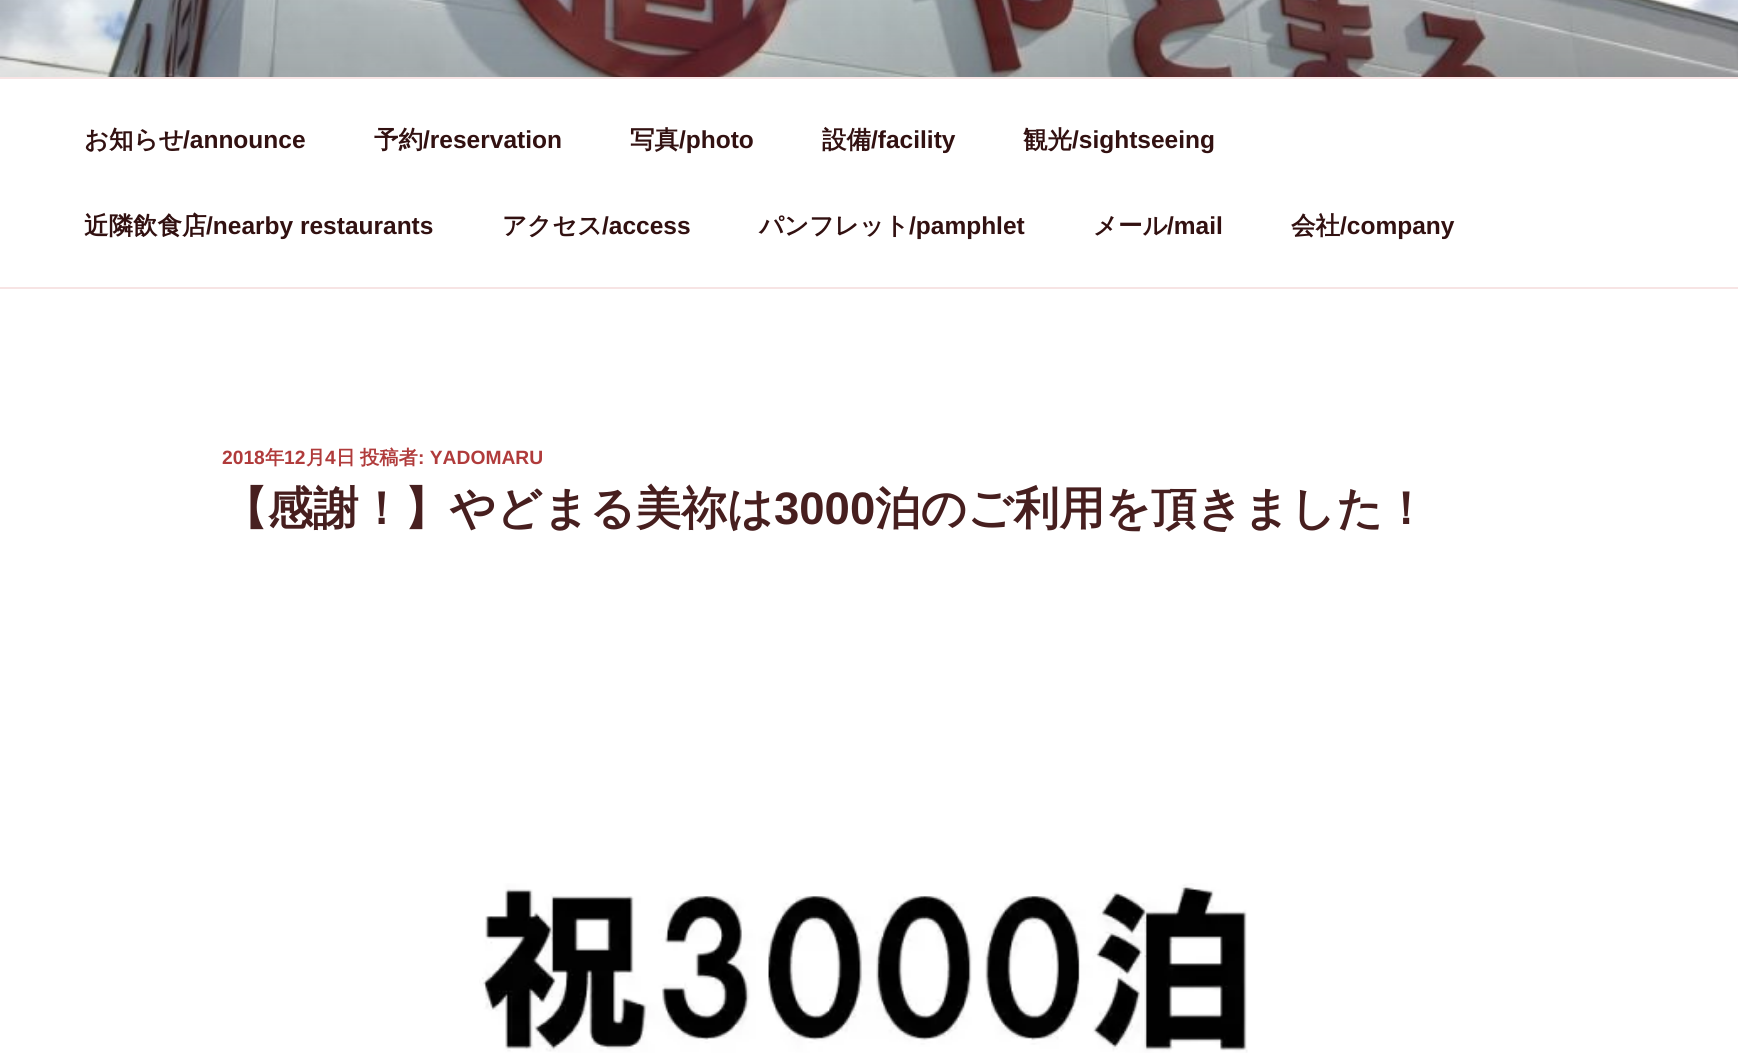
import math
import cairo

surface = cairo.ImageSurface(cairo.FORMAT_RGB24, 1738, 1060)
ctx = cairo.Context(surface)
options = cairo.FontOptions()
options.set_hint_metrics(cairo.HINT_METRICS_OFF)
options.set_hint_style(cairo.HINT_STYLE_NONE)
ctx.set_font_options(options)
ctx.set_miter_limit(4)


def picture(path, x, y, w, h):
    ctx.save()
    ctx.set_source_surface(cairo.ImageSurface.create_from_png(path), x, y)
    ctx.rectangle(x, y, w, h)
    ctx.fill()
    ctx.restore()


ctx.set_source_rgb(1, 1, 1)
ctx.paint()
picture("img1.png", 0, 0, 1738, 77)
ctx.set_source_rgb(0.965, 0.894, 0.894)
ctx.rectangle(0, 77, 1738, 2)
ctx.fill()
ctx.rectangle(0, 287, 1738, 2)
ctx.fill()
ctx.select_font_face("WenQuanYi Zen Hei", cairo.FONT_SLANT_NORMAL, cairo.FONT_WEIGHT_BOLD)
ctx.set_font_size(24.5)
ctx.set_source_rgb(0.196, 0.067, 0.067)
ctx.move_to(84, 148)
ctx.show_text("お知らせ")
ctx.select_font_face("Liberation Sans", cairo.FONT_SLANT_NORMAL, cairo.FONT_WEIGHT_BOLD)
ctx.move_to(183, 148)
ctx.show_text("/announce")
ctx.select_font_face("WenQuanYi Zen Hei", cairo.FONT_SLANT_NORMAL, cairo.FONT_WEIGHT_BOLD)
ctx.move_to(374, 148)
ctx.show_text("予約")
ctx.select_font_face("Liberation Sans", cairo.FONT_SLANT_NORMAL, cairo.FONT_WEIGHT_BOLD)
ctx.move_to(423, 148)
ctx.show_text("/reservation")
ctx.select_font_face("WenQuanYi Zen Hei", cairo.FONT_SLANT_NORMAL, cairo.FONT_WEIGHT_BOLD)
ctx.move_to(630, 148)
ctx.show_text("写真")
ctx.select_font_face("Liberation Sans", cairo.FONT_SLANT_NORMAL, cairo.FONT_WEIGHT_BOLD)
ctx.move_to(679, 148)
ctx.show_text("/photo")
ctx.select_font_face("WenQuanYi Zen Hei", cairo.FONT_SLANT_NORMAL, cairo.FONT_WEIGHT_BOLD)
ctx.move_to(822, 148)
ctx.show_text("設備")
ctx.select_font_face("Liberation Sans", cairo.FONT_SLANT_NORMAL, cairo.FONT_WEIGHT_BOLD)
ctx.move_to(871, 148)
ctx.show_text("/facility")
ctx.select_font_face("WenQuanYi Zen Hei", cairo.FONT_SLANT_NORMAL, cairo.FONT_WEIGHT_BOLD)
ctx.move_to(1023, 148)
ctx.show_text("観光")
ctx.select_font_face("Liberation Sans", cairo.FONT_SLANT_NORMAL, cairo.FONT_WEIGHT_BOLD)
ctx.move_to(1072, 148)
ctx.show_text("/sightseeing")
ctx.select_font_face("WenQuanYi Zen Hei", cairo.FONT_SLANT_NORMAL, cairo.FONT_WEIGHT_BOLD)
ctx.move_to(84, 234)
ctx.show_text("近隣飲食店")
ctx.select_font_face("Liberation Sans", cairo.FONT_SLANT_NORMAL, cairo.FONT_WEIGHT_BOLD)
ctx.move_to(206, 234)
ctx.show_text("/nearby restaurants")
ctx.select_font_face("WenQuanYi Zen Hei", cairo.FONT_SLANT_NORMAL, cairo.FONT_WEIGHT_BOLD)
ctx.move_to(502, 234)
ctx.show_text("アクセス")
ctx.select_font_face("Liberation Sans", cairo.FONT_SLANT_NORMAL, cairo.FONT_WEIGHT_BOLD)
ctx.move_to(602, 234)
ctx.show_text("/access")
ctx.select_font_face("WenQuanYi Zen Hei", cairo.FONT_SLANT_NORMAL, cairo.FONT_WEIGHT_BOLD)
ctx.move_to(759, 234)
ctx.show_text("パンフレット")
ctx.select_font_face("Liberation Sans", cairo.FONT_SLANT_NORMAL, cairo.FONT_WEIGHT_BOLD)
ctx.move_to(909, 234)
ctx.show_text("/pamphlet")
ctx.select_font_face("WenQuanYi Zen Hei", cairo.FONT_SLANT_NORMAL, cairo.FONT_WEIGHT_BOLD)
ctx.move_to(1093, 234)
ctx.show_text("メール")
ctx.select_font_face("Liberation Sans", cairo.FONT_SLANT_NORMAL, cairo.FONT_WEIGHT_BOLD)
ctx.move_to(1167, 234)
ctx.show_text("/mail")
ctx.select_font_face("WenQuanYi Zen Hei", cairo.FONT_SLANT_NORMAL, cairo.FONT_WEIGHT_BOLD)
ctx.move_to(1291, 234)
ctx.show_text("会社")
ctx.select_font_face("Liberation Sans", cairo.FONT_SLANT_NORMAL, cairo.FONT_WEIGHT_BOLD)
ctx.move_to(1340, 234)
ctx.show_text("/company")
ctx.set_font_size(19.25)
ctx.set_source_rgb(0.69, 0.231, 0.231)
ctx.move_to(222, 464)
ctx.show_text("2018")
ctx.select_font_face("WenQuanYi Zen Hei", cairo.FONT_SLANT_NORMAL, cairo.FONT_WEIGHT_BOLD)
ctx.move_to(265, 464)
ctx.show_text("年")
ctx.select_font_face("Liberation Sans", cairo.FONT_SLANT_NORMAL, cairo.FONT_WEIGHT_BOLD)
ctx.move_to(284, 464)
ctx.show_text("12")
ctx.select_font_face("WenQuanYi Zen Hei", cairo.FONT_SLANT_NORMAL, cairo.FONT_WEIGHT_BOLD)
ctx.move_to(306, 464)
ctx.show_text("月")
ctx.select_font_face("Liberation Sans", cairo.FONT_SLANT_NORMAL, cairo.FONT_WEIGHT_BOLD)
ctx.move_to(325, 464)
ctx.show_text("4")
ctx.select_font_face("WenQuanYi Zen Hei", cairo.FONT_SLANT_NORMAL, cairo.FONT_WEIGHT_BOLD)
ctx.move_to(336, 464)
ctx.show_text("日")
ctx.move_to(360, 464)
ctx.show_text("投稿者")
ctx.select_font_face("Liberation Sans", cairo.FONT_SLANT_NORMAL, cairo.FONT_WEIGHT_BOLD)
ctx.move_to(418, 464)
ctx.show_text(": YADOMARU")
ctx.select_font_face("WenQuanYi Zen Hei", cairo.FONT_SLANT_NORMAL, cairo.FONT_WEIGHT_BOLD)
ctx.set_font_size(45.5)
ctx.set_source_rgb(0.278, 0.122, 0.122)
ctx.move_to(222, 524)
ctx.show_text("【感謝！】やどまる美祢は")
ctx.select_font_face("Liberation Sans", cairo.FONT_SLANT_NORMAL, cairo.FONT_WEIGHT_BOLD)
ctx.move_to(774, 524)
ctx.show_text("3000")
ctx.select_font_face("WenQuanYi Zen Hei", cairo.FONT_SLANT_NORMAL, cairo.FONT_WEIGHT_BOLD)
ctx.move_to(875, 524)
ctx.show_text("泊のご利用を頂きました！")
picture("img2.png", 479, 883, 769, 170)
surface.write_to_png("page.png")
